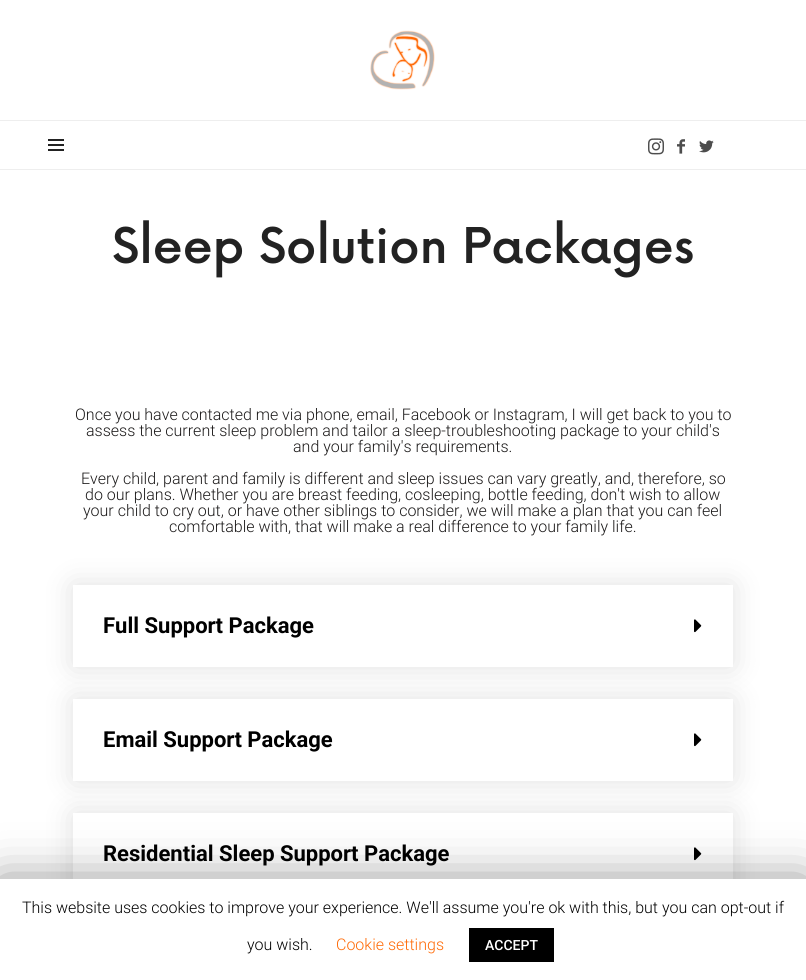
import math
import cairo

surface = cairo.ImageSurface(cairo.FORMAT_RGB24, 806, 980)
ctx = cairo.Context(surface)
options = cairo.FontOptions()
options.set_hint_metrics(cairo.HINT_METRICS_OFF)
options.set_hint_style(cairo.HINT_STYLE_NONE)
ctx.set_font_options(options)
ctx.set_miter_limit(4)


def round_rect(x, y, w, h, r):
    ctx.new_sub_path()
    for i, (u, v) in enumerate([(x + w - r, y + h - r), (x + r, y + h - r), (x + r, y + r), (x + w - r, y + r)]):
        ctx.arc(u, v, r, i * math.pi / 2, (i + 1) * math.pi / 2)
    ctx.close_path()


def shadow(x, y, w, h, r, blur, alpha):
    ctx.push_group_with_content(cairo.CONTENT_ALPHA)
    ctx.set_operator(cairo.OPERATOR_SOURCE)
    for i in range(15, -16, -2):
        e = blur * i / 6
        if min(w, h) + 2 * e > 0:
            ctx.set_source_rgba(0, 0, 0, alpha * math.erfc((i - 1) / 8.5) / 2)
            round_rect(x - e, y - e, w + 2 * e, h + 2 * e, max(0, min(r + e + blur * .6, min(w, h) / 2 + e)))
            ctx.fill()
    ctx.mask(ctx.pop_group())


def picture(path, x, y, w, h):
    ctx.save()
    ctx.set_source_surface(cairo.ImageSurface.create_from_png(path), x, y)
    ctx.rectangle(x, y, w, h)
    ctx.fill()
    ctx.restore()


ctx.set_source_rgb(1, 1, 1)
ctx.paint()
picture("img1.png", 370, 30, 65, 60)
ctx.set_source_rgb(0.933, 0.933, 0.933)
ctx.rectangle(0, 120, 806, 1)
ctx.fill()
ctx.rectangle(0, 169, 806, 1)
ctx.fill()
ctx.set_source_rgb(0.133, 0.133, 0.133)
ctx.rectangle(48, 144, 16, 2)
ctx.fill()
ctx.rectangle(48, 139, 16, 2)
ctx.fill()
ctx.rectangle(48, 149, 16, 2)
ctx.fill()
picture("img2.png", 648, 138, 16, 17)
picture("img3.png", 677, 139, 8, 15)
picture("img4.png", 699, 140, 15, 13)
ctx.select_font_face("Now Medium")
ctx.set_font_size(48)
ctx.move_to(112, 263)
ctx.show_text("Sleep Solution Packages")
ctx.select_font_face("Roboto Light")
ctx.set_font_size(16)
ctx.set_source_rgb(0.11, 0.102, 0.102)
ctx.move_to(75, 420)
ctx.show_text("Once you have contacted me via phone, email, Facebook or Instagram, I will get back to you to")
ctx.move_to(86, 436)
ctx.show_text("assess the current sleep problem and tailor a sleep-troubleshooting package to your child's")
ctx.move_to(293, 452)
ctx.show_text("and your family's requirements.")
ctx.move_to(81, 484)
ctx.show_text("Every child, parent and family is different and sleep issues can vary greatly, and, therefore, so")
ctx.move_to(85, 500)
ctx.show_text("do our plans. Whether you are breast feeding, cosleeping, bottle feeding, don't wish to allow")
ctx.move_to(83, 516)
ctx.show_text("your child to cry out, or have other siblings to consider, we will make a plan that you can feel")
ctx.move_to(169, 532)
ctx.show_text("comfortable with, that will make a real difference to your family life.")
ctx.save()
ctx.set_fill_rule(cairo.FILL_RULE_EVEN_ODD)
ctx.new_path()
ctx.move_to(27, 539)
ctx.line_to(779, 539)
ctx.line_to(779, 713)
ctx.line_to(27, 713)
ctx.close_path()
ctx.move_to(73, 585)
ctx.line_to(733, 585)
ctx.line_to(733, 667)
ctx.line_to(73, 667)
ctx.close_path()
ctx.clip()
ctx.set_source_rgb(0, 0, 0)
shadow(73, 585, 660, 82, 0, 15, 0.12)
ctx.restore()
ctx.select_font_face("Roboto", cairo.FONT_SLANT_NORMAL, cairo.FONT_WEIGHT_BOLD)
ctx.set_font_size(22)
ctx.set_source_rgb(0, 0, 0)
ctx.move_to(103, 633)
ctx.show_text("Full Support Package")
picture("img5.png", 694, 619, 8, 14)
ctx.save()
ctx.set_fill_rule(cairo.FILL_RULE_EVEN_ODD)
ctx.new_path()
ctx.move_to(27, 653)
ctx.line_to(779, 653)
ctx.line_to(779, 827)
ctx.line_to(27, 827)
ctx.close_path()
ctx.move_to(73, 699)
ctx.line_to(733, 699)
ctx.line_to(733, 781)
ctx.line_to(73, 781)
ctx.close_path()
ctx.clip()
ctx.set_source_rgb(0, 0, 0)
shadow(73, 699, 660, 82, 0, 15, 0.12)
ctx.restore()
ctx.move_to(103, 747)
ctx.show_text("Email Support Package")
picture("img5.png", 694, 733, 8, 14)
ctx.save()
ctx.set_fill_rule(cairo.FILL_RULE_EVEN_ODD)
ctx.new_path()
ctx.move_to(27, 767)
ctx.line_to(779, 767)
ctx.line_to(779, 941)
ctx.line_to(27, 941)
ctx.close_path()
ctx.move_to(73, 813)
ctx.line_to(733, 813)
ctx.line_to(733, 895)
ctx.line_to(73, 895)
ctx.close_path()
ctx.clip()
ctx.set_source_rgb(0, 0, 0)
shadow(73, 813, 660, 82, 0, 15, 0.12)
ctx.restore()
ctx.move_to(103, 861)
ctx.show_text("Residential Sleep Support Package")
picture("img5.png", 694, 847, 8, 14)
ctx.set_source_rgb(0, 0, 0)
shadow(0, 884, 806, 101, 0, 25, 0.5)
ctx.set_source_rgb(1, 1, 1)
ctx.rectangle(0, 879, 806, 101)
ctx.fill()
ctx.select_font_face("Roboto Light")
ctx.set_font_size(16)
ctx.set_source_rgb(0, 0, 0)
ctx.move_to(22, 913)
ctx.show_text("This website uses cookies to improve your experience. We'll assume you're ok with this, but you can opt-out if")
ctx.move_to(247, 950)
ctx.show_text("you wish.")
ctx.set_source_rgb(1, 0.416, 0.024)
ctx.move_to(336, 950)
ctx.show_text("Cookie settings")
ctx.set_source_rgb(0, 0, 0)
ctx.rectangle(469, 928, 85, 34)
ctx.fill()
ctx.select_font_face("Roboto Medium")
ctx.set_font_size(14)
ctx.set_source_rgb(1, 1, 1)
ctx.move_to(485, 950)
ctx.show_text("ACCEPT")
surface.write_to_png("page.png")
